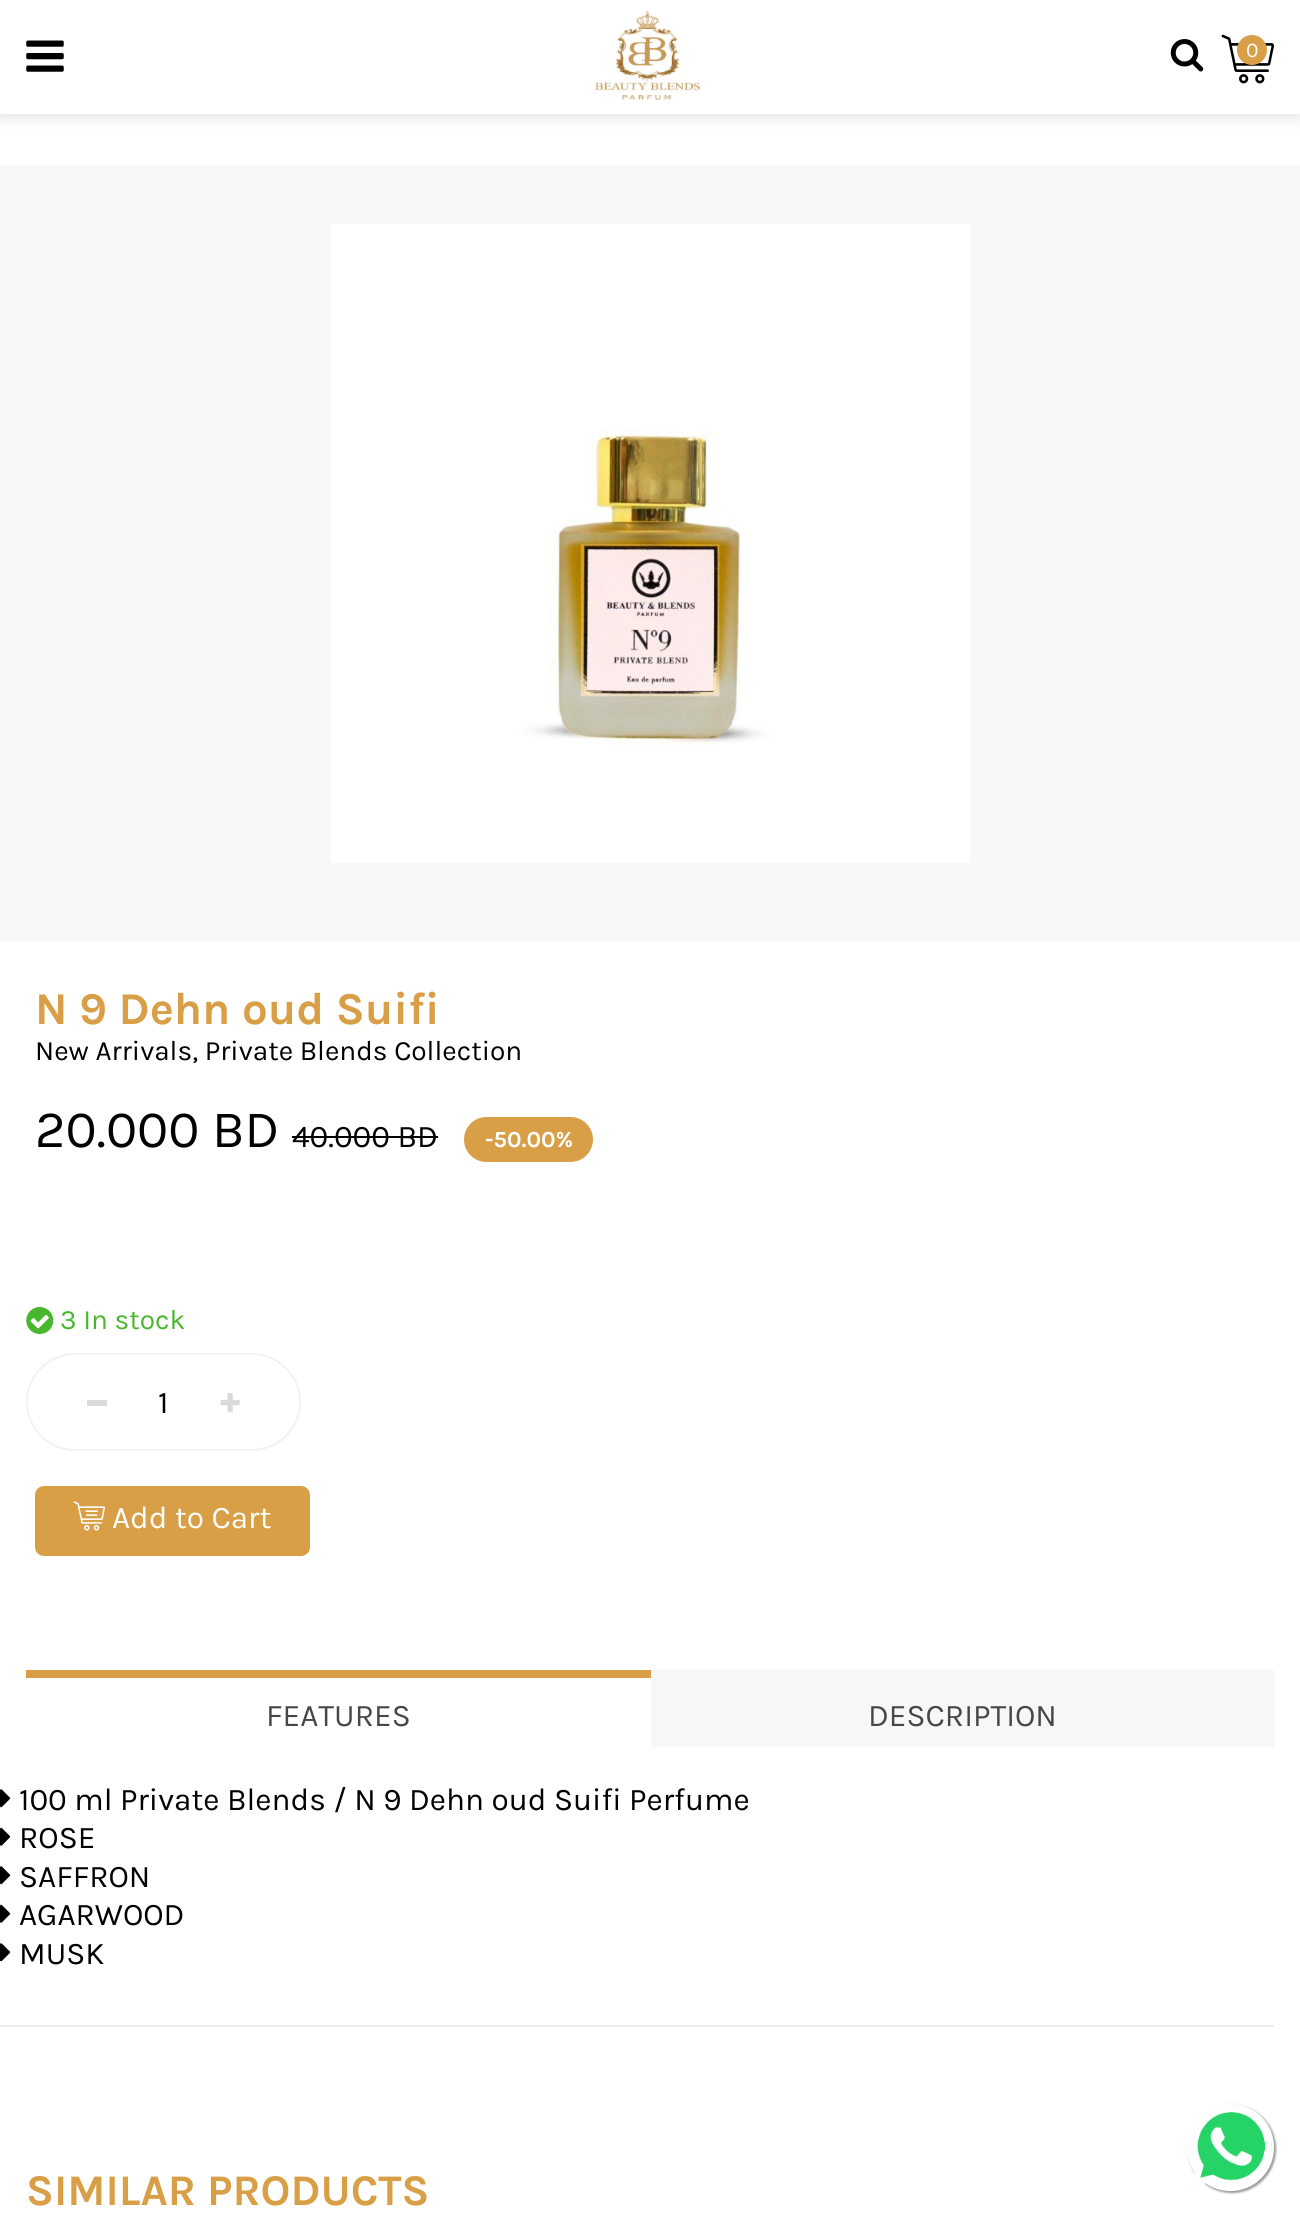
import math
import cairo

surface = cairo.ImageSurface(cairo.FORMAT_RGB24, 1300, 2234)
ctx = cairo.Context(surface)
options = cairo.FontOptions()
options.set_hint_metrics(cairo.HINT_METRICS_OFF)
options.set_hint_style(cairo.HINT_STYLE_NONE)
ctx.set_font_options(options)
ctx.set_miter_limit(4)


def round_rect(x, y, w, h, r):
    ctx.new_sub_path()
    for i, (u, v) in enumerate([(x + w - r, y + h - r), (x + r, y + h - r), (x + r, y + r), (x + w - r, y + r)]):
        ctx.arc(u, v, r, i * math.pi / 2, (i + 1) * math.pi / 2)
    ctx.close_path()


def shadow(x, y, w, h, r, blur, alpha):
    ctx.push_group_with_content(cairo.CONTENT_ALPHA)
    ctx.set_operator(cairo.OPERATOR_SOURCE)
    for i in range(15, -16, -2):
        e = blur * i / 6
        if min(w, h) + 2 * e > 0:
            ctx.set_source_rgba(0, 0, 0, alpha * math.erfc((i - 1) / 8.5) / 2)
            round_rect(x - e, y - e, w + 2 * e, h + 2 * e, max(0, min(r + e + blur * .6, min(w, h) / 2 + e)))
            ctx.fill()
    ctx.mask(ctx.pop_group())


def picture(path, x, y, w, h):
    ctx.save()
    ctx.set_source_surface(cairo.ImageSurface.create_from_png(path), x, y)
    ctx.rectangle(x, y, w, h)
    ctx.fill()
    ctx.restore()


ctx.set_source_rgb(1, 1, 1)
ctx.paint()
ctx.set_source_rgb(0, 0, 0)
shadow(0, 0, 1300, 114, 0, 9, 0.16)
ctx.set_source_rgb(1, 1, 1)
ctx.rectangle(0, 0, 1300, 114)
ctx.fill()
picture("img1.png", 26, 40, 38, 32)
picture("img2.png", 595, 9, 107, 92)
picture("img3.png", 1170, 39, 34, 33)
picture("img4.png", 1221, 34, 53, 50)
ctx.set_source_rgb(0.851, 0.624, 0.278)
ctx.arc(1252, 50, 15, 0, 2 * math.pi)
ctx.fill()
ctx.select_font_face("Karla")
ctx.set_font_size(21)
ctx.set_source_rgb(1, 1, 1)
ctx.move_to(1246, 57)
ctx.show_text("0")
ctx.set_source_rgb(0.969, 0.969, 0.969)
ctx.rectangle(0, 166, 1300, 776)
ctx.fill()
picture("img5.png", 331, 224, 639, 639)
ctx.select_font_face("Karla", cairo.FONT_SLANT_NORMAL, cairo.FONT_WEIGHT_BOLD)
ctx.set_font_size(45.5)
ctx.set_source_rgb(0.851, 0.624, 0.278)
ctx.move_to(35, 1024)
ctx.show_text("N 9 Dehn oud Suifi")
ctx.select_font_face("Karla")
ctx.set_font_size(28)
ctx.set_source_rgb(0, 0, 0)
ctx.move_to(35, 1060)
ctx.show_text("New Arrivals, Private Blends Collection")
ctx.set_font_size(52.5)
ctx.move_to(35, 1147)
ctx.show_text("20.000 BD")
ctx.set_font_size(31.5)
ctx.move_to(292, 1147)
ctx.show_text("40.000 BD")
ctx.rectangle(292, 1136, 146, 2)
ctx.fill()
ctx.set_source_rgb(0.851, 0.624, 0.278)
round_rect(464, 1117, 129, 45, 22.5)
ctx.fill()
ctx.select_font_face("Karla", cairo.FONT_SLANT_NORMAL, cairo.FONT_WEIGHT_BOLD)
ctx.set_font_size(23)
ctx.set_source_rgb(1, 1, 1)
ctx.move_to(485, 1147)
ctx.show_text("-50.00%")
picture("img6.png", 26, 1307, 28, 27)
ctx.select_font_face("Karla")
ctx.set_font_size(28)
ctx.set_source_rgb(0.286, 0.718, 0.173)
ctx.move_to(60, 1329)
ctx.show_text("3 In stock")
round_rect(27, 1354, 273, 96, 48)
ctx.set_source_rgb(0.949, 0.949, 0.949)
ctx.stroke()
ctx.set_source_rgb(0.859, 0.859, 0.859)
ctx.rectangle(87, 1400, 20, 6)
ctx.fill()
ctx.set_font_size(31.5)
ctx.set_source_rgb(0, 0, 0)
ctx.move_to(158, 1413)
ctx.show_text("1")
picture("img7.png", 220, 1393, 20, 20)
ctx.set_source_rgb(0.851, 0.624, 0.278)
round_rect(37, 1488, 271, 66, 7)
ctx.fill_preserve()
ctx.set_line_width(4)
ctx.stroke()
picture("img8.png", 73, 1501, 32, 30)
ctx.set_source_rgb(1, 1, 1)
ctx.move_to(112, 1528)
ctx.show_text("Add to Cart")
ctx.set_source_rgb(0.851, 0.624, 0.278)
ctx.rectangle(26, 1670, 625, 8)
ctx.fill()
ctx.set_source_rgb(0.278, 0.278, 0.278)
ctx.move_to(266, 1726)
ctx.show_text("FEATURES")
ctx.set_source_rgb(0.969, 0.965, 0.965)
ctx.rectangle(651, 1670, 623, 77)
ctx.fill()
ctx.set_source_rgb(0.278, 0.278, 0.278)
ctx.move_to(868, 1726)
ctx.show_text("DESCRIPTION")
picture("img9.png", 0, 1789, 11, 19)
ctx.set_source_rgb(0, 0, 0)
ctx.move_to(19, 1810)
ctx.show_text("100 ml Private Blends / N 9 Dehn oud Suifi Perfume")
picture("img10.png", 0, 1827, 11, 19)
ctx.move_to(19, 1848)
ctx.show_text("ROSE")
picture("img9.png", 0, 1866, 11, 19)
ctx.move_to(19, 1887)
ctx.show_text("SAFFRON")
picture("img10.png", 0, 1904, 11, 19)
ctx.move_to(19, 1925)
ctx.show_text("AGARWOOD")
picture("img9.png", 0, 1943, 11, 19)
ctx.move_to(19, 1964)
ctx.show_text("MUSK")
ctx.set_source_rgb(0.933, 0.933, 0.933)
ctx.rectangle(0, 2025, 1274, 2)
ctx.fill()
ctx.select_font_face("Karla", cairo.FONT_SLANT_NORMAL, cairo.FONT_WEIGHT_BOLD)
ctx.set_font_size(43.75)
ctx.set_source_rgb(0.851, 0.624, 0.278)
ctx.move_to(26, 2205)
ctx.show_text("SIMILAR PRODUCTS")
ctx.save()
ctx.set_fill_rule(cairo.FILL_RULE_EVEN_ODD)
ctx.new_path()
ctx.move_to(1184, 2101)
ctx.line_to(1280, 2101)
ctx.line_to(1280, 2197)
ctx.line_to(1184, 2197)
ctx.close_path()
ctx.move_to(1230.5, 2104)
ctx.curve_to(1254.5, 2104, 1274, 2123.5, 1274, 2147.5)
ctx.curve_to(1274, 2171.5, 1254.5, 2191, 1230.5, 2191)
ctx.curve_to(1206.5, 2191, 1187, 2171.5, 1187, 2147.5)
ctx.curve_to(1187, 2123.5, 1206.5, 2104, 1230.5, 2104)
ctx.close_path()
ctx.clip()
ctx.set_source_rgb(0.6, 0.6, 0.6)
shadow(1188, 2105, 88, 88, 44, 1, 1)
ctx.restore()
picture("img11.png", 1190, 2105, 82, 82)
surface.write_to_png("page.png")
